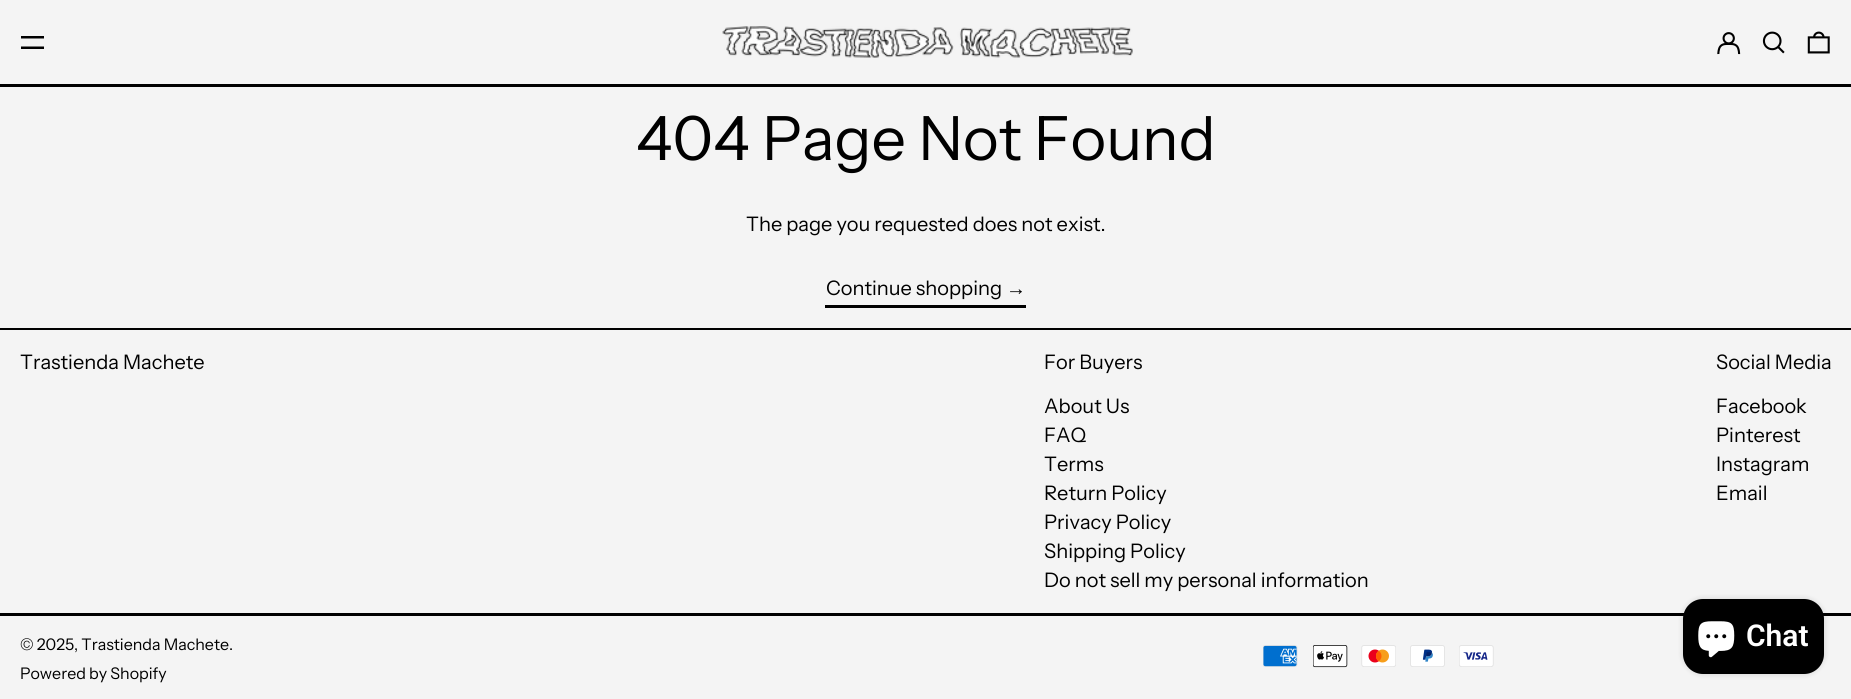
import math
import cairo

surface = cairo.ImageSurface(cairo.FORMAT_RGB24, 1851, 699)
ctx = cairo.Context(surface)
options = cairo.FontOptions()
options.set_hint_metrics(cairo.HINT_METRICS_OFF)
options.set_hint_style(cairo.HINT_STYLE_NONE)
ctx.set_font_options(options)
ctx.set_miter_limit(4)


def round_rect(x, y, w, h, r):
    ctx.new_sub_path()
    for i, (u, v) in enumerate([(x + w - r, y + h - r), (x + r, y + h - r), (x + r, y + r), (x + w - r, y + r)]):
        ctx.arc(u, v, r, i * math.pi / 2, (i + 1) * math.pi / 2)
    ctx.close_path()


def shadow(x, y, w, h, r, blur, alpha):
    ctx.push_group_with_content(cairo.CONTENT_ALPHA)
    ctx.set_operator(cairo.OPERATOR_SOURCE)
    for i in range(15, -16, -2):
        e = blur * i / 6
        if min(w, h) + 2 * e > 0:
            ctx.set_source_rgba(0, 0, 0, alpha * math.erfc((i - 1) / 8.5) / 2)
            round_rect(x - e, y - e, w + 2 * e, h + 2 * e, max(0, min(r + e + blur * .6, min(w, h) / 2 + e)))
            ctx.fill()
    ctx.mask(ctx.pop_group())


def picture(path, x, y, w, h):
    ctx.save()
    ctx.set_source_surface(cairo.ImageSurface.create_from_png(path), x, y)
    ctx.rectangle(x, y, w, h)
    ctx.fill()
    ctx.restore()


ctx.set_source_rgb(0.957, 0.957, 0.957)
ctx.paint()
ctx.set_source_rgb(0, 0, 0)
ctx.rectangle(0, 84, 1851, 3)
ctx.fill()
ctx.set_fill_rule(cairo.FILL_RULE_EVEN_ODD)
ctx.new_path()
ctx.move_to(44, 46.5)
ctx.line_to(44, 49)
ctx.line_to(21, 49)
ctx.line_to(21, 46.5)
ctx.close_path()
ctx.move_to(44, 36)
ctx.line_to(44, 38.5)
ctx.line_to(21, 38.5)
ctx.line_to(21, 36)
ctx.close_path()
ctx.fill()
picture("img1.png", 722, 26, 411, 32)
picture("img2.png", 1717, 32, 24, 23)
picture("img3.png", 1762, 31, 23, 23)
picture("img4.png", 1807, 31, 23, 23)
ctx.select_font_face("Instrument Sans")
ctx.set_font_size(61)
ctx.move_to(636, 160)
ctx.show_text("404 Page Not Found")
ctx.set_font_size(20)
ctx.move_to(746, 231)
ctx.show_text("The page you requested does not exist.")
ctx.rectangle(825, 305, 201, 3)
ctx.fill()
ctx.move_to(826, 295)
ctx.show_text("Continue shopping")
ctx.select_font_face("Liberation Sans")
ctx.move_to(1006, 295)
ctx.show_text("→")
ctx.rectangle(0, 328, 1851, 2)
ctx.fill()
ctx.select_font_face("Instrument Sans")
ctx.move_to(20, 369)
ctx.show_text("Trastienda Machete")
ctx.move_to(1044, 369)
ctx.show_text("For Buyers")
ctx.move_to(1044, 413)
ctx.show_text("About Us")
ctx.move_to(1044, 442)
ctx.show_text("FAQ")
ctx.move_to(1044, 471)
ctx.show_text("Terms")
ctx.move_to(1044, 500)
ctx.show_text("Return Policy")
ctx.move_to(1044, 529)
ctx.show_text("Privacy Policy")
ctx.move_to(1044, 558)
ctx.show_text("Shipping Policy")
ctx.move_to(1044, 587)
ctx.show_text("Do not sell my personal information")
ctx.move_to(1716, 369)
ctx.show_text("Social Media")
ctx.move_to(1716, 413)
ctx.show_text("Facebook")
ctx.move_to(1716, 442)
ctx.show_text("Pinterest")
ctx.move_to(1716, 471)
ctx.show_text("Instagram")
ctx.move_to(1716, 500)
ctx.show_text("Email")
ctx.rectangle(0, 613, 1851, 3)
ctx.fill()
ctx.set_font_size(16)
ctx.move_to(20, 650)
ctx.show_text("© 2025, Trastienda Machete.")
ctx.move_to(20, 679)
ctx.show_text("Powered by Shopify")
picture("img5.png", 1263, 645, 35, 22)
picture("img6.png", 1313, 645, 35, 23)
picture("img7.png", 1361, 645, 35, 22)
picture("img8.png", 1410, 645, 35, 22)
picture("img9.png", 1459, 645, 35, 22)
ctx.set_source_rgb(0, 0, 0)
shadow(1683, 599, 141, 75, 20, 3, 0.15)
ctx.set_source_rgb(0, 0, 0)
round_rect(1683, 599, 141, 75, 20)
ctx.fill()
picture("img10.png", 1698, 621, 37, 37)
ctx.select_font_face("Roboto SemiBold")
ctx.set_font_size(30)
ctx.set_source_rgb(1, 1, 1)
ctx.move_to(1746, 646)
ctx.show_text("Chat")
surface.write_to_png("page.png")
